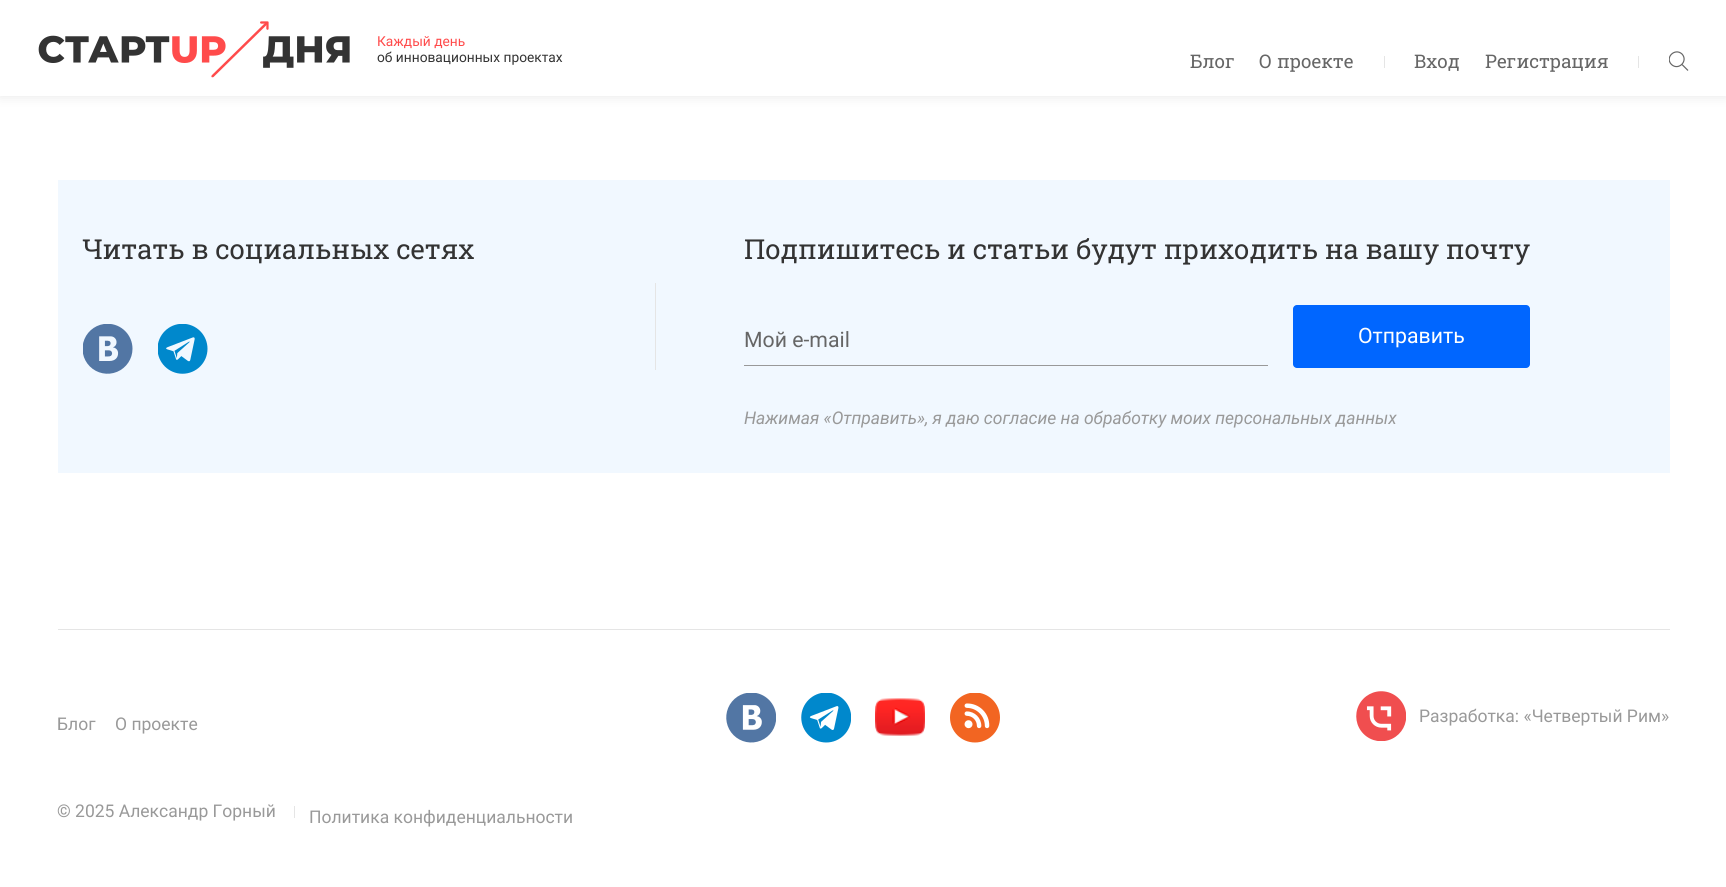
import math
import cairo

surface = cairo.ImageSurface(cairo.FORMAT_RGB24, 1726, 887)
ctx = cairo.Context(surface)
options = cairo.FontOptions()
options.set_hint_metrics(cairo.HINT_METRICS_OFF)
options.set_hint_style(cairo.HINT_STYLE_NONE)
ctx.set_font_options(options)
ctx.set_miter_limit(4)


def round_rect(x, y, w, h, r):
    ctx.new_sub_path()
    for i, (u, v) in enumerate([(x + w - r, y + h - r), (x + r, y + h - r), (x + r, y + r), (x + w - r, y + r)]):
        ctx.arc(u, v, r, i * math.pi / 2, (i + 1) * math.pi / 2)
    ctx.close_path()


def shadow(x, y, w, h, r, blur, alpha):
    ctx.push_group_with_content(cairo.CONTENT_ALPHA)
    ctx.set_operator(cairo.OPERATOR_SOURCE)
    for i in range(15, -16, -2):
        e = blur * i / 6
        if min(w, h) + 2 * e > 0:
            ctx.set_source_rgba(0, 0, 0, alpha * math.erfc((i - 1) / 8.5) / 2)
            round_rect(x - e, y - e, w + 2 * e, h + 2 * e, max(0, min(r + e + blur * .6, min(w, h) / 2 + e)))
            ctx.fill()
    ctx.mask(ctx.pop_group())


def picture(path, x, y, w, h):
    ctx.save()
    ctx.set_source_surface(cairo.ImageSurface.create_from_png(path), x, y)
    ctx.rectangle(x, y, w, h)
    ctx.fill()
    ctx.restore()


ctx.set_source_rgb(1, 1, 1)
ctx.paint()
ctx.set_source_rgb(0, 0, 0)
shadow(0, 0, 1726, 96, 0, 6, 0.1)
ctx.set_source_rgb(1, 1, 1)
ctx.rectangle(0, 0, 1726, 96)
ctx.fill()
picture("img1.png", 38, 21, 312, 57)
ctx.select_font_face("Roboto")
ctx.set_font_size(13.75)
ctx.set_source_rgb(1, 0.294, 0.294)
ctx.move_to(377, 46)
ctx.show_text("Каждый день")
ctx.set_source_rgb(0.2, 0.2, 0.2)
ctx.move_to(377, 62)
ctx.show_text("об инновационных проектах")
ctx.select_font_face("Roboto Slab")
ctx.set_font_size(18.75)
ctx.set_source_rgb(0.4, 0.4, 0.4)
ctx.move_to(1190, 68)
ctx.show_text("Блог")
ctx.move_to(1259, 68)
ctx.show_text("О проекте")
ctx.set_source_rgb(0.898, 0.898, 0.898)
ctx.rectangle(1384, 56, 1, 12)
ctx.fill()
ctx.set_source_rgb(0.4, 0.4, 0.4)
ctx.move_to(1414, 68)
ctx.show_text("Вход")
ctx.move_to(1485, 68)
ctx.show_text("Регистрация")
ctx.set_source_rgb(0.898, 0.898, 0.898)
ctx.rectangle(1638, 56, 1, 12)
ctx.fill()
ctx.save()
ctx.rectangle(1669, 51, 20, 20)
ctx.clip()
ctx.new_path()
ctx.move_to(1682, 54)
ctx.curve_to(1688.5, 61, 1678.5, 71, 1671.5, 64.5)
ctx.curve_to(1664.5, 57.5, 1675, 47.5, 1682, 54)
ctx.close_path()
ctx.set_source_rgb(0.4, 0.4, 0.4)
ctx.set_line_width(1.2)
ctx.stroke()
ctx.restore()
ctx.new_path()
ctx.move_to(1682, 64.5)
ctx.line_to(1688, 70.5)
ctx.set_source_rgb(0.4, 0.4, 0.4)
ctx.set_line_width(1.2)
ctx.stroke()
ctx.set_source_rgb(0.945, 0.969, 1)
ctx.rectangle(58, 180, 1612, 293)
ctx.fill()
ctx.set_font_size(27.5)
ctx.set_source_rgb(0.2, 0.2, 0.2)
ctx.move_to(82, 259)
ctx.show_text("Читать в социальных сетях")
picture("img2.png", 83, 324, 50, 50)
picture("img3.png", 158, 324, 50, 50)
ctx.set_source_rgb(0.898, 0.898, 0.898)
ctx.rectangle(655, 283, 1, 87)
ctx.fill()
ctx.set_source_rgb(0.2, 0.2, 0.2)
ctx.move_to(744, 259)
ctx.show_text("Подпишитесь и статьи будут приходить на вашу почту")
ctx.select_font_face("Roboto")
ctx.set_font_size(21.25)
ctx.set_source_rgb(0.4, 0.4, 0.4)
ctx.move_to(744, 347)
ctx.show_text("Moй e-mail")
ctx.set_source_rgb(0.6, 0.6, 0.6)
ctx.rectangle(744, 365, 524, 1)
ctx.fill()
ctx.set_source_rgb(0, 0.4, 1)
round_rect(1293, 305, 237, 63, 4)
ctx.fill()
ctx.set_source_rgb(1, 1, 1)
ctx.move_to(1358, 343)
ctx.show_text("Отправить")
ctx.select_font_face("Roboto", cairo.FONT_SLANT_ITALIC)
ctx.set_font_size(17.5)
ctx.set_source_rgb(0.6, 0.6, 0.6)
ctx.move_to(744, 424)
ctx.show_text("Нажимая «Отправить», я даю согласие на обработку моих персональных данных")
ctx.set_source_rgb(0.898, 0.898, 0.898)
ctx.rectangle(58, 629, 1612, 1)
ctx.fill()
ctx.select_font_face("Roboto")
ctx.set_source_rgb(0.6, 0.6, 0.6)
ctx.move_to(57, 730)
ctx.show_text("Блог")
ctx.move_to(115, 730)
ctx.show_text("О проекте")
picture("img4.png", 726, 693, 50, 50)
picture("img5.png", 801, 693, 50, 50)
picture("img6.png", 875, 698, 50, 38)
picture("img7.png", 950, 693, 50, 50)
picture("img8.png", 1356, 691, 50, 50)
ctx.move_to(1419, 722)
ctx.show_text("Разработка: «Четвертый Рим»")
ctx.move_to(57, 817)
ctx.show_text("© 2025 Александр Горный")
ctx.set_source_rgb(0.898, 0.898, 0.898)
ctx.rectangle(294, 806, 1, 12)
ctx.fill()
ctx.set_source_rgb(0.6, 0.6, 0.6)
ctx.move_to(309, 823)
ctx.show_text("Политика конфиденциальности")
surface.write_to_png("page.png")
